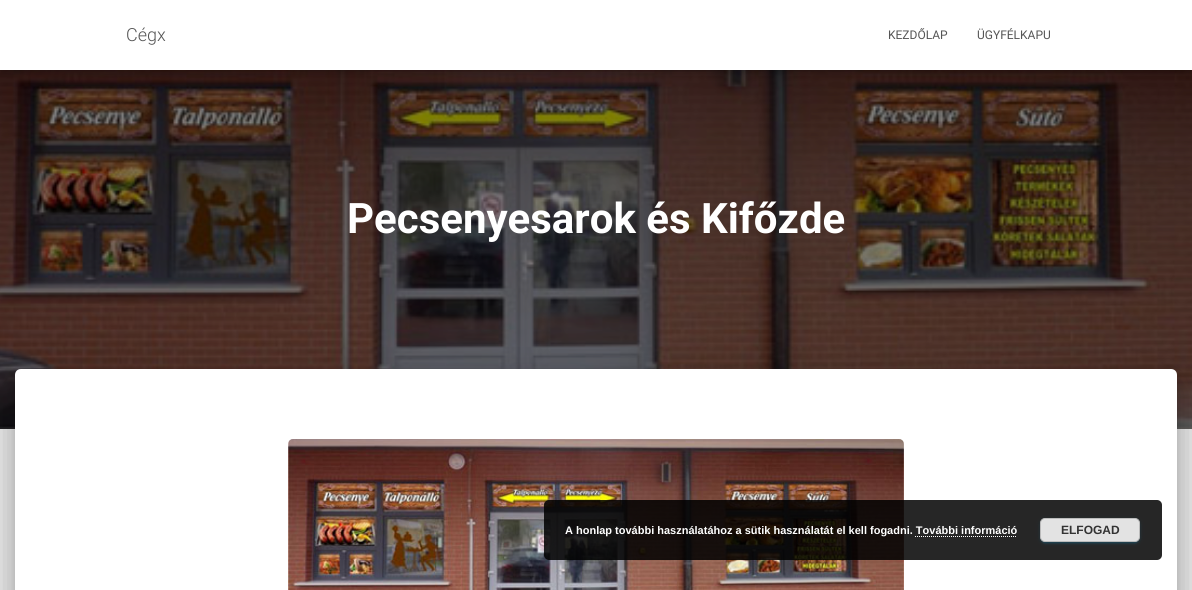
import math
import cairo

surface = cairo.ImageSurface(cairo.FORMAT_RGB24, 1192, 590)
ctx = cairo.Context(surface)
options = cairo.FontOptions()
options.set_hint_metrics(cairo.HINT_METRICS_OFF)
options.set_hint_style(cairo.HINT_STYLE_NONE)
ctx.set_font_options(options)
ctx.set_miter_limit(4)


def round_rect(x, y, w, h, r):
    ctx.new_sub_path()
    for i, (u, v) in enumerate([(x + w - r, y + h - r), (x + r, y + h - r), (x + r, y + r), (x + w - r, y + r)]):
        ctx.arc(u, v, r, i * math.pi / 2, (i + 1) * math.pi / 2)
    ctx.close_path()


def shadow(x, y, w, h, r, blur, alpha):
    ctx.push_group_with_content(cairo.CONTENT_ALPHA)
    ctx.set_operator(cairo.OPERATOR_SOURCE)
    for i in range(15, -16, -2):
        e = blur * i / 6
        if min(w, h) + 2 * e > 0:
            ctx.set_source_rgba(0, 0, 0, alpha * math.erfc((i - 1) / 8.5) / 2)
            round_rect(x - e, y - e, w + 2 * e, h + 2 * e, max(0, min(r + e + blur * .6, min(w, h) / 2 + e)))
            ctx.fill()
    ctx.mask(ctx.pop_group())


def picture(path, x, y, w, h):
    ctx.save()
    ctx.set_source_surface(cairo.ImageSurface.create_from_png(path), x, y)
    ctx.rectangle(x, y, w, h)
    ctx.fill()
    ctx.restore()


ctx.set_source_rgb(0.898, 0.898, 0.898)
ctx.paint()
picture("img1.png", 0, 70, 1192, 359)
ctx.set_source_rgb(0, 0, 0)
shadow(2, 6, 1188, 66, 0, 2.5, 0.1)
shadow(0, 1, 1192, 70, 0, 5, 0.12)
shadow(6, 7, 1180, 58, 0, 5, 0.42)
ctx.set_source_rgb(1, 1, 1)
ctx.rectangle(0, 0, 1192, 70)
ctx.fill()
ctx.select_font_face("Roboto Light")
ctx.set_font_size(18)
ctx.set_source_rgb(0.333, 0.333, 0.333)
ctx.move_to(126, 41)
ctx.show_text("Cégx")
ctx.select_font_face("Roboto")
ctx.set_font_size(12)
ctx.move_to(888, 39)
ctx.show_text("KEZDŐLAP")
ctx.move_to(977, 39)
ctx.show_text("ÜGYFÉLKAPU")
ctx.select_font_face("Roboto", cairo.FONT_SLANT_NORMAL, cairo.FONT_WEIGHT_BOLD)
ctx.set_font_size(42)
ctx.set_source_rgb(1, 1, 1)
ctx.move_to(347, 233)
ctx.show_text("Pecsenyesarok és Kifőzde")
ctx.set_source_rgb(0, 0, 0)
shadow(20, 382, 1152, 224, 1, 5, 0.2)
shadow(10, 370, 1172, 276, 11, 15, 0.12)
shadow(13, 383, 1166, 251, 8, 12, 0.14)
ctx.set_source_rgb(1, 1, 1)
ctx.new_path()
ctx.move_to(21, 369)
ctx.line_to(1171, 369)
ctx.curve_to(1174.5, 369, 1177, 371.5, 1177, 375)
ctx.line_to(1177, 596)
ctx.line_to(15, 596)
ctx.line_to(15, 375)
ctx.curve_to(15, 371.5, 17.5, 369, 21, 369)
ctx.close_path()
ctx.fill()
picture("img2.png", 288, 439, 616, 151)
ctx.set_source_rgba(0, 0, 0, 0.85)
round_rect(544, 500, 618, 60, 5)
ctx.fill()
ctx.select_font_face("Liberation Sans", cairo.FONT_SLANT_NORMAL, cairo.FONT_WEIGHT_BOLD)
ctx.set_font_size(11)
ctx.set_source_rgb(1, 1, 1)
ctx.move_to(565, 534)
ctx.show_text("A honlap további használatához a sütik használatát el kell fogadni. További információ")
ctx.set_source_rgb(0.071, 0.447, 0.608)
shadow(1040, 519, 100, 24, 5, 2.5, 0.12)
shadow(1042, 523, 96, 20, 3, 0.5, 0.2)
shadow(1040, 520, 100, 24, 5, 1, 0.14)
ctx.set_source_rgb(0.89, 0.89, 0.89)
round_rect(1040.5, 518.5, 99, 23, 4.5)
ctx.fill_preserve()
ctx.set_source_rgb(0.733, 0.733, 0.733)
ctx.set_line_width(1)
ctx.stroke()
ctx.set_font_size(12)
ctx.set_source_rgb(0.2, 0.2, 0.2)
ctx.move_to(1061, 534)
ctx.show_text("ELFOGAD")
ctx.new_path()
ctx.move_to(915, 536.5)
ctx.line_to(1017, 536.5)
ctx.set_source_rgb(1, 1, 1)
ctx.set_dash([1, 1])
ctx.stroke()
surface.write_to_png("page.png")
